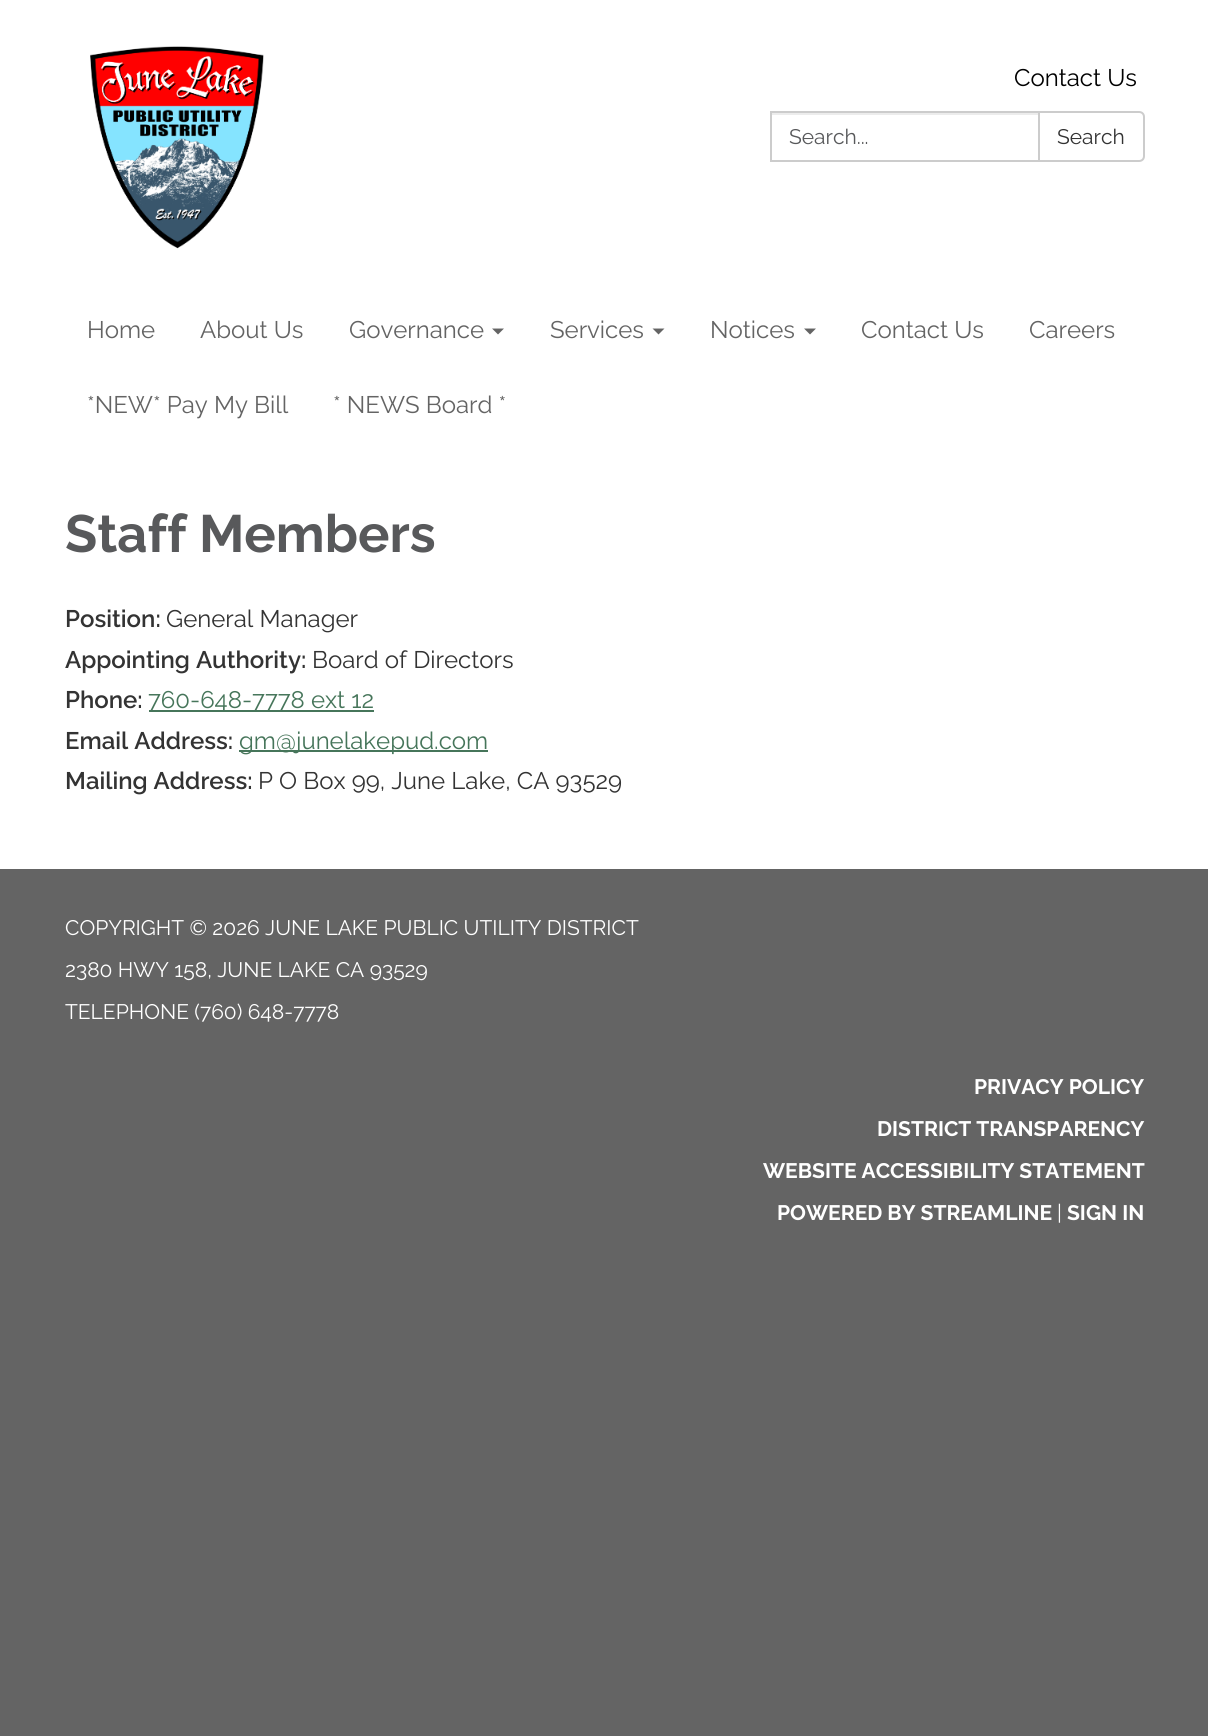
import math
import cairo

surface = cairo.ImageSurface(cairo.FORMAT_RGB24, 1208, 1736)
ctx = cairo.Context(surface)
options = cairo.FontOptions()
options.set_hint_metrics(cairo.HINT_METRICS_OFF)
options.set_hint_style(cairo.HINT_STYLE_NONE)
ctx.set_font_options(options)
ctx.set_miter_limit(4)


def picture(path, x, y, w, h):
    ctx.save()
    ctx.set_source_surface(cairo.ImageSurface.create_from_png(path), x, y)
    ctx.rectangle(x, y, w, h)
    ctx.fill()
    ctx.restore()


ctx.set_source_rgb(0.392, 0.392, 0.392)
ctx.paint()
ctx.set_source_rgb(1, 1, 1)
ctx.rectangle(0, 0, 1208, 293)
ctx.fill()
picture("img1.png", 90, 46, 174, 203)
ctx.select_font_face("Raleway")
ctx.set_font_size(24)
ctx.set_source_rgb(0, 0, 0)
ctx.move_to(1014, 86)
ctx.show_text("Contact Us")
ctx.set_source_rgb(0.925, 0.925, 0.925)
ctx.rectangle(771, 113, 267, 2)
ctx.fill()
ctx.rectangle(771, 112, 268, 49)
ctx.set_source_rgb(0.8, 0.8, 0.8)
ctx.stroke()
ctx.set_font_size(21)
ctx.set_source_rgb(0.345, 0.349, 0.357)
ctx.move_to(789, 144)
ctx.show_text("Search...")
ctx.set_source_rgb(1, 1, 1)
ctx.new_path()
ctx.move_to(1039, 112)
ctx.line_to(1139, 112)
ctx.curve_to(1142, 112, 1144, 114, 1144, 117)
ctx.line_to(1144, 156)
ctx.curve_to(1144, 159, 1142, 161, 1139, 161)
ctx.line_to(1039, 161)
ctx.close_path()
ctx.fill_preserve()
ctx.set_source_rgb(0.8, 0.8, 0.8)
ctx.stroke()
ctx.set_source_rgb(0.2, 0.2, 0.2)
ctx.move_to(1057, 144)
ctx.show_text("Search")
ctx.set_source_rgb(1, 1, 1)
ctx.rectangle(0, 293, 1208, 576)
ctx.fill()
ctx.set_font_size(24)
ctx.set_source_rgb(0.392, 0.392, 0.392)
ctx.move_to(87, 338)
ctx.show_text("Home")
ctx.move_to(200, 338)
ctx.show_text("About Us")
ctx.move_to(349, 338)
ctx.show_text("Governance")
ctx.new_path()
ctx.move_to(492, 328.5)
ctx.line_to(504, 328.5)
ctx.line_to(498, 334.5)
ctx.close_path()
ctx.fill()
ctx.move_to(550, 338)
ctx.show_text("Services")
ctx.new_path()
ctx.move_to(652.5, 328.5)
ctx.line_to(664.5, 328.5)
ctx.line_to(658.5, 334.5)
ctx.close_path()
ctx.fill()
ctx.move_to(710, 338)
ctx.show_text("Notices")
ctx.new_path()
ctx.move_to(804, 328.5)
ctx.line_to(816, 328.5)
ctx.line_to(810, 334.5)
ctx.close_path()
ctx.fill()
ctx.move_to(861, 338)
ctx.show_text("Contact Us")
ctx.move_to(1029, 338)
ctx.show_text("Careers")
ctx.move_to(87, 413)
ctx.show_text("*NEW* Pay My Bill")
ctx.move_to(333, 413)
ctx.show_text("* NEWS Board *")
ctx.select_font_face("Raleway", cairo.FONT_SLANT_NORMAL, cairo.FONT_WEIGHT_BOLD)
ctx.set_font_size(52.5)
ctx.set_source_rgb(0.345, 0.349, 0.357)
ctx.move_to(65, 552)
ctx.show_text("Staff Members")
ctx.select_font_face("Raleway SemiBold")
ctx.set_font_size(24)
ctx.set_source_rgb(0.2, 0.2, 0.2)
ctx.move_to(65, 627)
ctx.show_text("Position:")
ctx.select_font_face("Raleway")
ctx.move_to(166, 627)
ctx.show_text("General Manager")
ctx.select_font_face("Raleway SemiBold")
ctx.move_to(65, 668)
ctx.show_text("Appointing Authority:")
ctx.select_font_face("Raleway")
ctx.move_to(312, 668)
ctx.show_text("Board of Directors")
ctx.select_font_face("Raleway SemiBold")
ctx.move_to(65, 708)
ctx.show_text("Phone:")
ctx.set_source_rgb(0.275, 0.459, 0.353)
ctx.rectangle(149, 710, 225, 2)
ctx.fill()
ctx.select_font_face("Raleway")
ctx.move_to(148, 708)
ctx.show_text("760-648-7778 ext 12")
ctx.select_font_face("Raleway SemiBold")
ctx.set_source_rgb(0.2, 0.2, 0.2)
ctx.move_to(65, 749)
ctx.show_text("Email Address:")
ctx.set_source_rgb(0.275, 0.459, 0.353)
ctx.rectangle(239, 750, 249, 2)
ctx.fill()
ctx.select_font_face("Raleway")
ctx.move_to(239, 749)
ctx.show_text("gm@junelakepud.com")
ctx.select_font_face("Raleway SemiBold")
ctx.set_source_rgb(0.2, 0.2, 0.2)
ctx.move_to(65, 789)
ctx.show_text("Mailing Address:")
ctx.select_font_face("Raleway")
ctx.move_to(258, 789)
ctx.show_text("P O Box 99, June Lake, CA 93529")
ctx.set_font_size(21)
ctx.set_source_rgb(1, 1, 1)
ctx.move_to(65, 935)
ctx.show_text("COPYRIGHT © 2026 JUNE LAKE PUBLIC UTILITY DISTRICT")
ctx.move_to(65, 977)
ctx.show_text("2380 HWY 158, JUNE LAKE CA 93529")
ctx.move_to(65, 1019)
ctx.show_text("TELEPHONE (760) 648-7778")
ctx.select_font_face("Raleway", cairo.FONT_SLANT_NORMAL, cairo.FONT_WEIGHT_BOLD)
ctx.move_to(974, 1094)
ctx.show_text("PRIVACY POLICY")
ctx.move_to(877, 1136)
ctx.show_text("DISTRICT TRANSPARENCY")
ctx.move_to(763, 1178)
ctx.show_text("WEBSITE ACCESSIBILITY STATEMENT")
ctx.move_to(777, 1220)
ctx.show_text("POWERED BY STREAMLINE")
ctx.select_font_face("Raleway")
ctx.move_to(1057, 1220)
ctx.show_text("|")
ctx.select_font_face("Raleway", cairo.FONT_SLANT_NORMAL, cairo.FONT_WEIGHT_BOLD)
ctx.move_to(1067, 1220)
ctx.show_text("SIGN IN")
surface.write_to_png("page.png")
